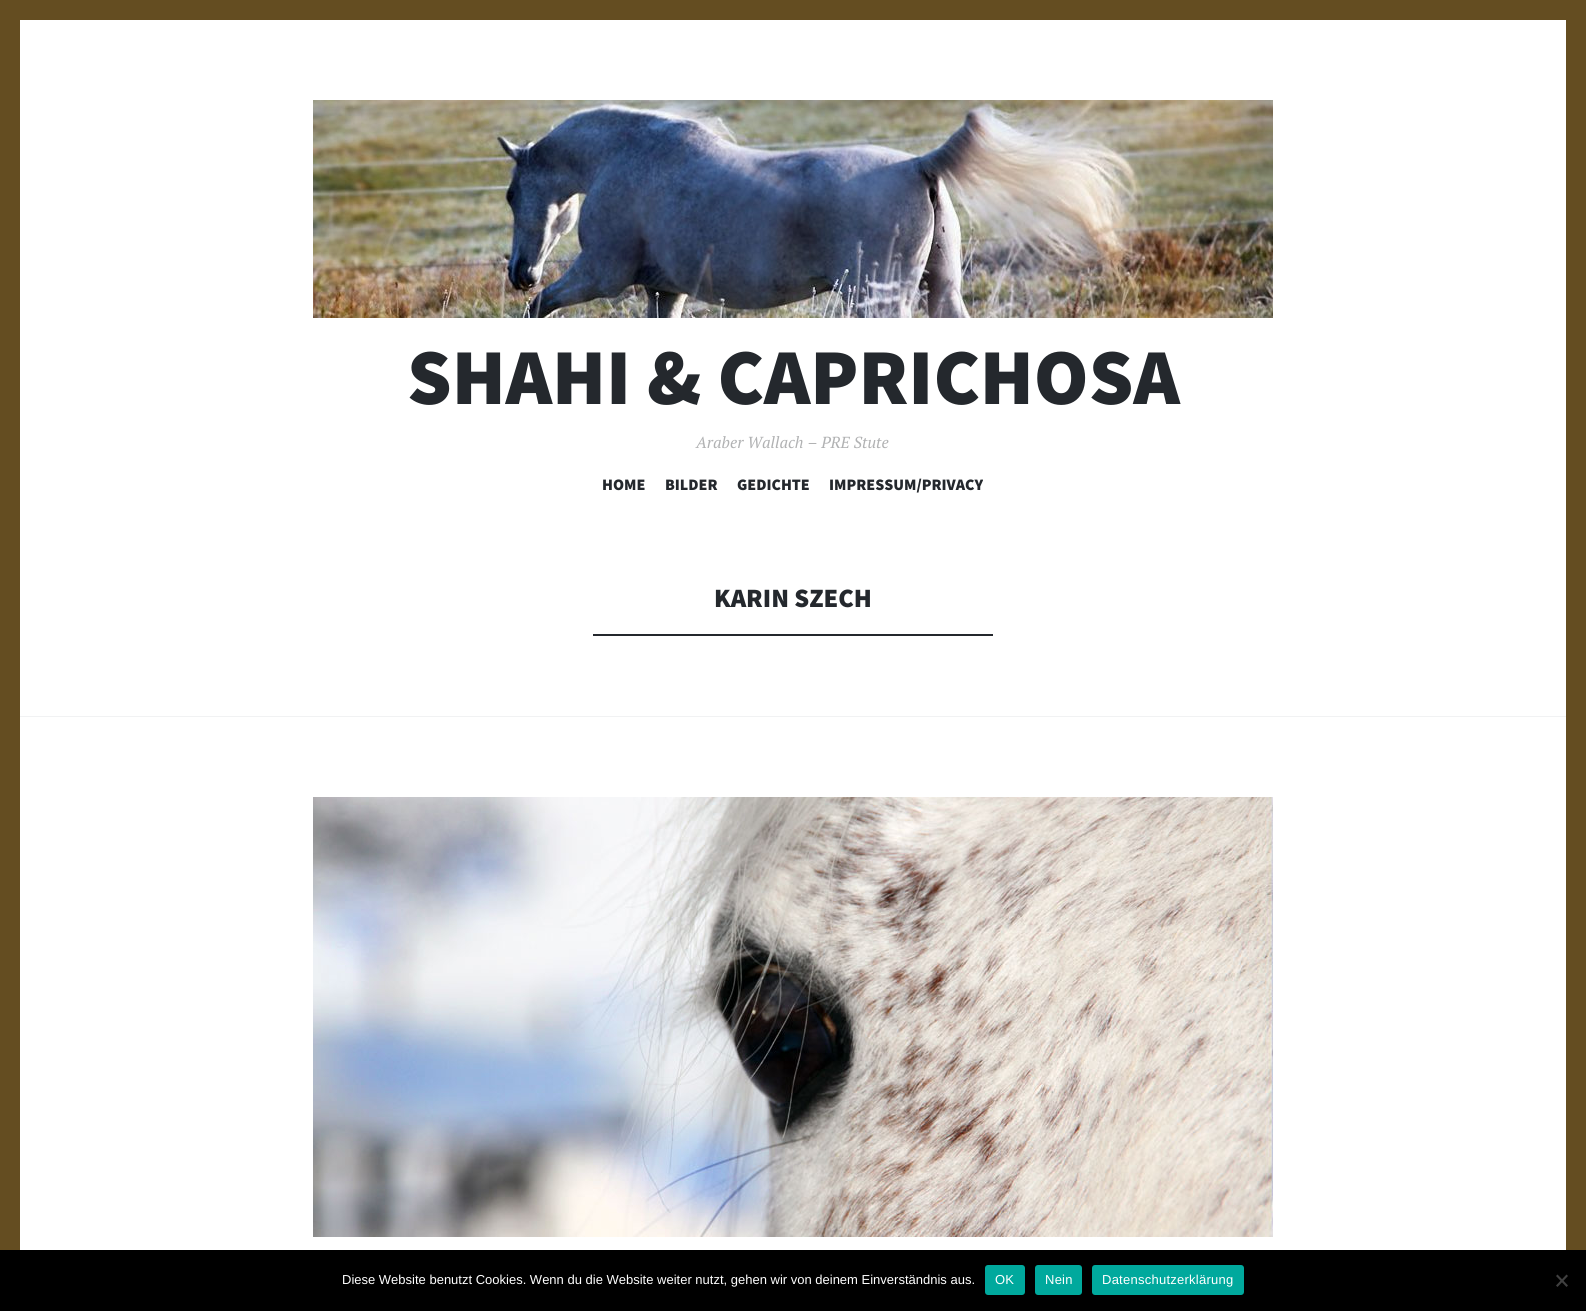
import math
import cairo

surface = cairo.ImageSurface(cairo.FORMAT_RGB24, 1586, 1311)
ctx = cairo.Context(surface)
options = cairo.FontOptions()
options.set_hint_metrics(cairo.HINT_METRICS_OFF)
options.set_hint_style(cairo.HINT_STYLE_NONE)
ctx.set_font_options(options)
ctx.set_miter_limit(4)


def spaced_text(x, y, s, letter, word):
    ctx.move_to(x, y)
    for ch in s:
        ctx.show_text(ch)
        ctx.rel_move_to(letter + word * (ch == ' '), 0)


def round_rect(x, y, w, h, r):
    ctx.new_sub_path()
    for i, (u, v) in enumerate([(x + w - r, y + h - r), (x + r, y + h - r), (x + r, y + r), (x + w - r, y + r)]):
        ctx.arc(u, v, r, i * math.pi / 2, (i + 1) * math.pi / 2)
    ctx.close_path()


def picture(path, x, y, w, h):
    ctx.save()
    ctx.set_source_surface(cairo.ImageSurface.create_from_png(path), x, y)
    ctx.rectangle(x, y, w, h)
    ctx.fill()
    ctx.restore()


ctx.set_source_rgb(0.392, 0.302, 0.129)
ctx.paint()
ctx.set_source_rgb(1, 1, 1)
ctx.rectangle(20, 20, 1546, 1230)
ctx.fill()
picture("img1.png", 313, 100, 960, 218)
ctx.select_font_face("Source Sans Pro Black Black")
ctx.set_font_size(79.25)
ctx.set_source_rgb(0.141, 0.157, 0.176)
ctx.move_to(407, 404)
ctx.show_text("SHAHI & CAPRICHOSA")
ctx.select_font_face("PT Serif", cairo.FONT_SLANT_ITALIC)
ctx.set_font_size(16)
ctx.set_source_rgb(0.694, 0.698, 0.702)
ctx.move_to(696, 448)
ctx.show_text("Araber Wallach – PRE Stute")
ctx.select_font_face("Source Sans Pro Black Black")
ctx.set_source_rgb(0.141, 0.157, 0.176)
ctx.move_to(602, 490)
ctx.show_text("HOME")
ctx.move_to(665, 490)
ctx.show_text("BILDER")
ctx.move_to(737, 490)
ctx.show_text("GEDICHTE")
ctx.move_to(829, 490)
ctx.show_text("IMPRESSUM/PRIVACY")
ctx.set_font_size(26.5)
ctx.move_to(714, 607)
ctx.show_text("KARIN SZECH")
ctx.rectangle(593, 634, 400, 2)
ctx.fill()
ctx.set_source_rgb(0.945, 0.949, 0.953)
ctx.rectangle(20, 716, 1546, 1)
ctx.fill()
picture("img2.png", 313, 797, 960, 440)
ctx.set_source_rgb(0, 0, 0)
ctx.rectangle(0, 1250, 1586, 61)
ctx.fill()
ctx.select_font_face("Liberation Sans")
ctx.set_font_size(13)
ctx.set_source_rgb(1, 1, 1)
ctx.move_to(342, 1284)
ctx.show_text("Diese Website benutzt Cookies. Wenn du die Website weiter nutzt, gehen wir von deinem Einverständnis aus.")
ctx.set_source_rgb(0, 0.663, 0.616)
round_rect(985, 1265, 40, 30, 3)
ctx.fill()
ctx.set_source_rgb(1, 1, 1)
spaced_text(995, 1284, "OK", 0.25, 0)
ctx.set_source_rgb(0, 0.663, 0.616)
round_rect(1035, 1265, 47, 30, 3)
ctx.fill()
ctx.set_source_rgb(1, 1, 1)
spaced_text(1045, 1284, "Nein", 0.25, 0)
ctx.set_source_rgb(0, 0.663, 0.616)
round_rect(1092, 1265, 152, 30, 3)
ctx.fill()
ctx.set_source_rgb(1, 1, 1)
spaced_text(1102, 1284, "Datenschutzerklärung", 0.25, 0)
ctx.set_source_rgb(0.251, 0.251, 0.251)
ctx.new_path()
ctx.move_to(1566.5, 1274.5)
ctx.line_to(1568, 1276)
ctx.line_to(1557.5, 1287)
ctx.line_to(1556, 1285.5)
ctx.close_path()
ctx.fill()
ctx.new_path()
ctx.move_to(1556, 1276)
ctx.line_to(1557.5, 1274.5)
ctx.line_to(1568, 1285.5)
ctx.line_to(1566.5, 1287)
ctx.close_path()
ctx.fill()
surface.write_to_png("page.png")
